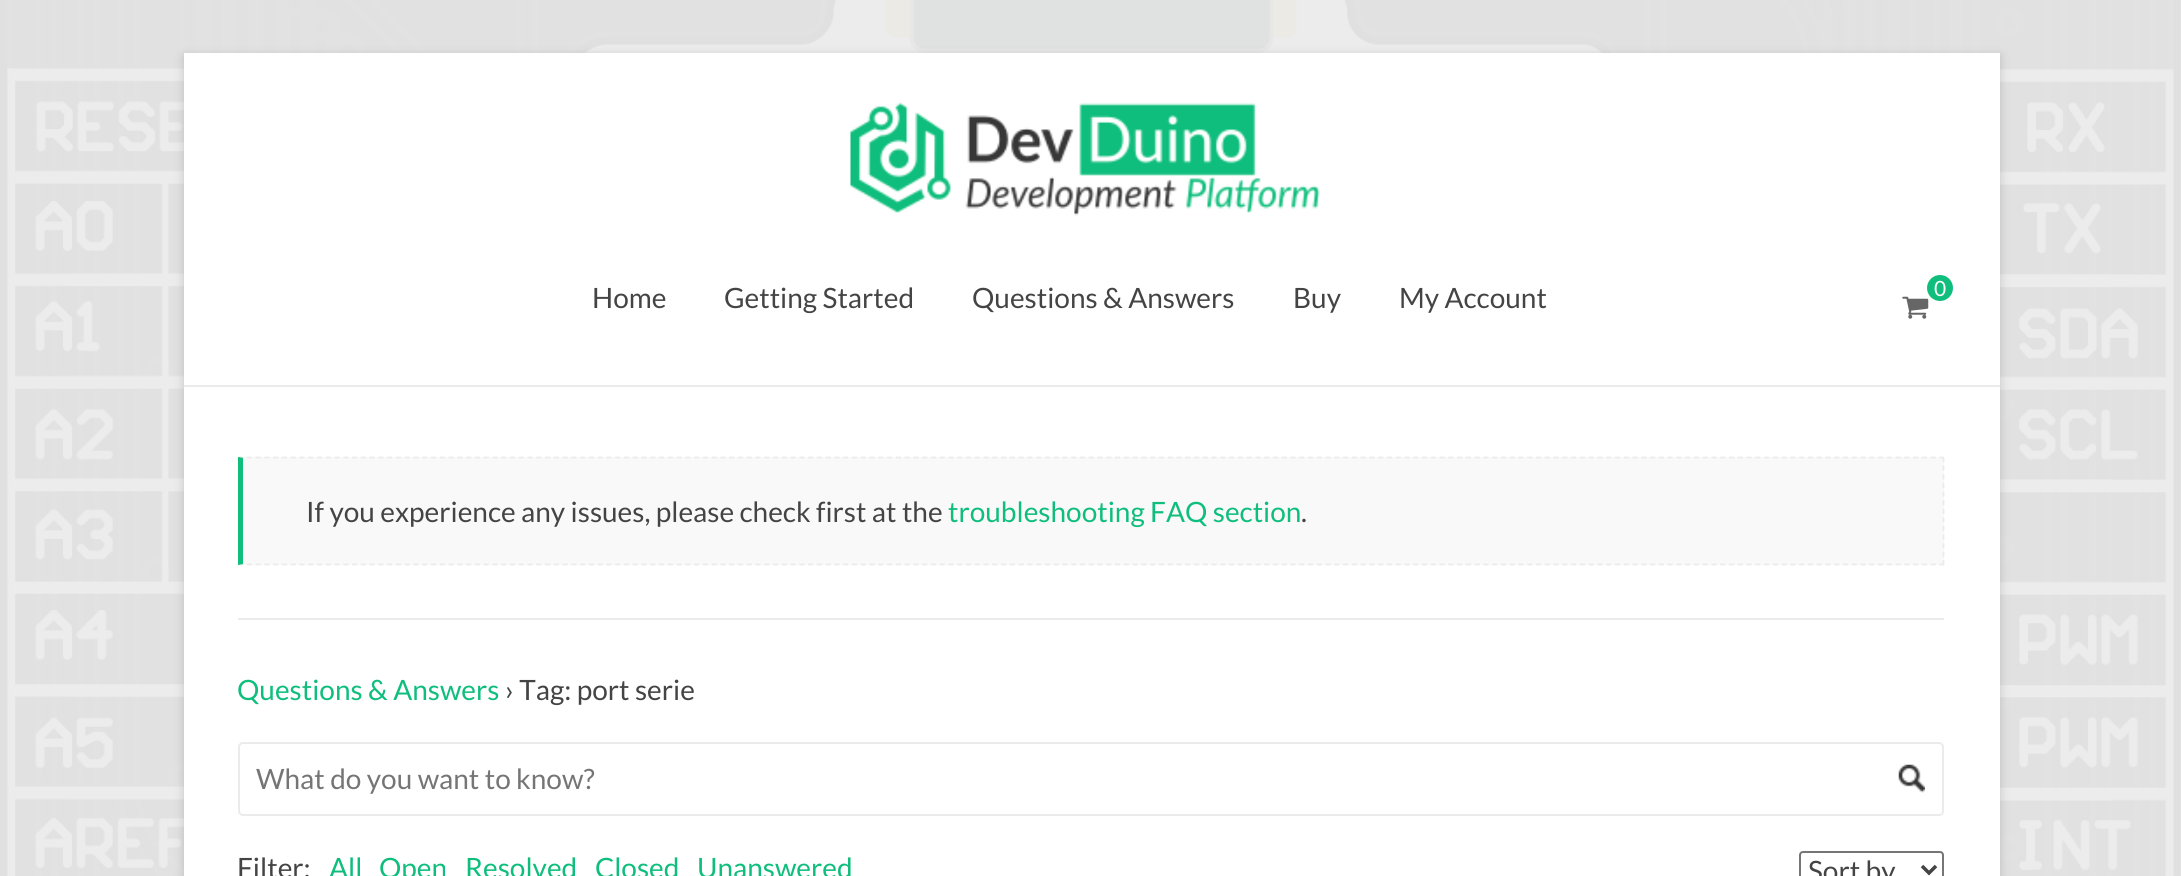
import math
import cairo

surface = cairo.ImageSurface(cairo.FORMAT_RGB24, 2181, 876)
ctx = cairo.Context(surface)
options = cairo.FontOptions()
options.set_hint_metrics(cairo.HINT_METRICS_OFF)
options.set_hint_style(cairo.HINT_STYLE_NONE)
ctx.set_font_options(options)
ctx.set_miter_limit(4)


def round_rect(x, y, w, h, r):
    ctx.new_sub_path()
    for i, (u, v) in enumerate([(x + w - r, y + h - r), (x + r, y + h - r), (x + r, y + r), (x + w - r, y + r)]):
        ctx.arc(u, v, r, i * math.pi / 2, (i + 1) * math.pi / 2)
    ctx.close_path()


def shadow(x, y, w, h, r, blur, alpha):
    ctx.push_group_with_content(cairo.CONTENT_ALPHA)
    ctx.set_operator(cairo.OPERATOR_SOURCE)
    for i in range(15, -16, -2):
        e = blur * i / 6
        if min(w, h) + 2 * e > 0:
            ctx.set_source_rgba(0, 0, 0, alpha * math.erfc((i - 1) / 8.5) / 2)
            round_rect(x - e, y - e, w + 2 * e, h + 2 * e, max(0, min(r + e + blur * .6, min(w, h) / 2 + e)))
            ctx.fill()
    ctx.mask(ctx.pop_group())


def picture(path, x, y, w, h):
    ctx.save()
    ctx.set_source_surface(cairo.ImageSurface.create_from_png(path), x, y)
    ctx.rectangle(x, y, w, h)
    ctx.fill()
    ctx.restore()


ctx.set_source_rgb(0.918, 0.918, 0.918)
ctx.paint()
picture("img1.png", 0, 0, 2181, 876)
ctx.set_source_rgb(0.392, 0.392, 0.392)
shadow(184, 56, 1816, 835, 0, 5, 0.3)
ctx.set_source_rgb(1, 1, 1)
ctx.rectangle(184, 53, 1816, 823)
ctx.fill()
ctx.set_source_rgb(0.918, 0.918, 0.918)
ctx.rectangle(184, 385, 1816, 2)
ctx.fill()
picture("img2.png", 850, 102, 470, 114)
ctx.select_font_face("Lato")
ctx.set_font_size(28)
ctx.set_source_rgb(0.267, 0.267, 0.267)
ctx.move_to(592, 308)
ctx.show_text("Home")
ctx.move_to(724, 308)
ctx.show_text("Getting Started")
ctx.move_to(972, 308)
ctx.show_text("Questions & Answers")
ctx.move_to(1293, 308)
ctx.show_text("Buy")
ctx.move_to(1399, 308)
ctx.show_text("My Account")
picture("img3.png", 1902, 296, 27, 23)
ctx.set_source_rgb(0.059, 0.745, 0.486)
ctx.arc(1940, 288, 13, 0, 2 * math.pi)
ctx.fill()
ctx.set_font_size(21)
ctx.set_source_rgb(1, 1, 1)
ctx.move_to(1934, 296)
ctx.show_text("0")
ctx.set_source_rgb(0.973, 0.973, 0.973)
ctx.rectangle(243, 457, 1701, 108)
ctx.fill()
ctx.new_path()
ctx.move_to(238, 457.5)
ctx.line_to(1944, 457.5)
ctx.set_source_rgb(0.918, 0.918, 0.918)
ctx.set_line_width(1.8)
ctx.set_dash([5.25, 3.52])
ctx.stroke()
ctx.new_path()
ctx.move_to(1943.5, 457)
ctx.line_to(1943.5, 565)
ctx.set_dash([5.25, 3.36])
ctx.stroke()
ctx.new_path()
ctx.move_to(238, 564.5)
ctx.line_to(1944, 564.5)
ctx.set_dash([5.25, 3.52])
ctx.stroke()
ctx.set_source_rgb(0.059, 0.745, 0.486)
ctx.new_path()
ctx.move_to(238, 565)
ctx.line_to(238, 457)
ctx.line_to(243, 458)
ctx.line_to(243, 564)
ctx.close_path()
ctx.fill()
ctx.set_font_size(28)
ctx.set_source_rgb(0.267, 0.267, 0.267)
ctx.move_to(306, 522)
ctx.show_text("If you experience any issues, please check first at the")
ctx.set_source_rgb(0.059, 0.745, 0.486)
ctx.move_to(948, 522)
ctx.show_text("troubleshooting FAQ section")
ctx.set_source_rgb(0.267, 0.267, 0.267)
ctx.move_to(1301, 522)
ctx.show_text(".")
ctx.set_source_rgb(0.918, 0.918, 0.918)
ctx.rectangle(238, 618, 1706, 2)
ctx.fill()
ctx.set_source_rgb(0.059, 0.745, 0.486)
ctx.move_to(237, 700)
ctx.show_text("Questions & Answers")
ctx.set_source_rgb(0.267, 0.267, 0.267)
ctx.move_to(505, 700)
ctx.show_text("› Tag: port serie")
picture("img4.png", 1898, 764, 27, 29)
round_rect(239, 743, 1704, 72, 4)
ctx.set_source_rgb(0.918, 0.918, 0.918)
ctx.set_line_width(2)
ctx.set_dash([])
ctx.stroke()
ctx.set_source_rgb(0.459, 0.459, 0.459)
ctx.move_to(256, 789)
ctx.show_text("What do you want to know?")
ctx.set_source_rgb(0.267, 0.267, 0.267)
ctx.move_to(237, 878)
ctx.show_text("Filter:")
ctx.set_source_rgb(0.059, 0.745, 0.486)
ctx.move_to(329, 878)
ctx.show_text("All")
ctx.move_to(379, 878)
ctx.show_text("Open")
ctx.move_to(465, 878)
ctx.show_text("Resolved")
ctx.move_to(595, 878)
ctx.show_text("Closed")
ctx.move_to(697, 878)
ctx.show_text("Unanswered")
round_rect(1800, 852, 143, 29, 3)
ctx.set_source_rgb(0.463, 0.463, 0.463)
ctx.stroke()
ctx.new_path()
ctx.move_to(1922, 866)
ctx.line_to(1929, 873)
ctx.line_to(1936, 866)
ctx.set_source_rgb(0.267, 0.267, 0.267)
ctx.set_line_width(3.5)
ctx.stroke()
ctx.move_to(1808, 881)
ctx.show_text("Sort by")
surface.write_to_png("page.png")
